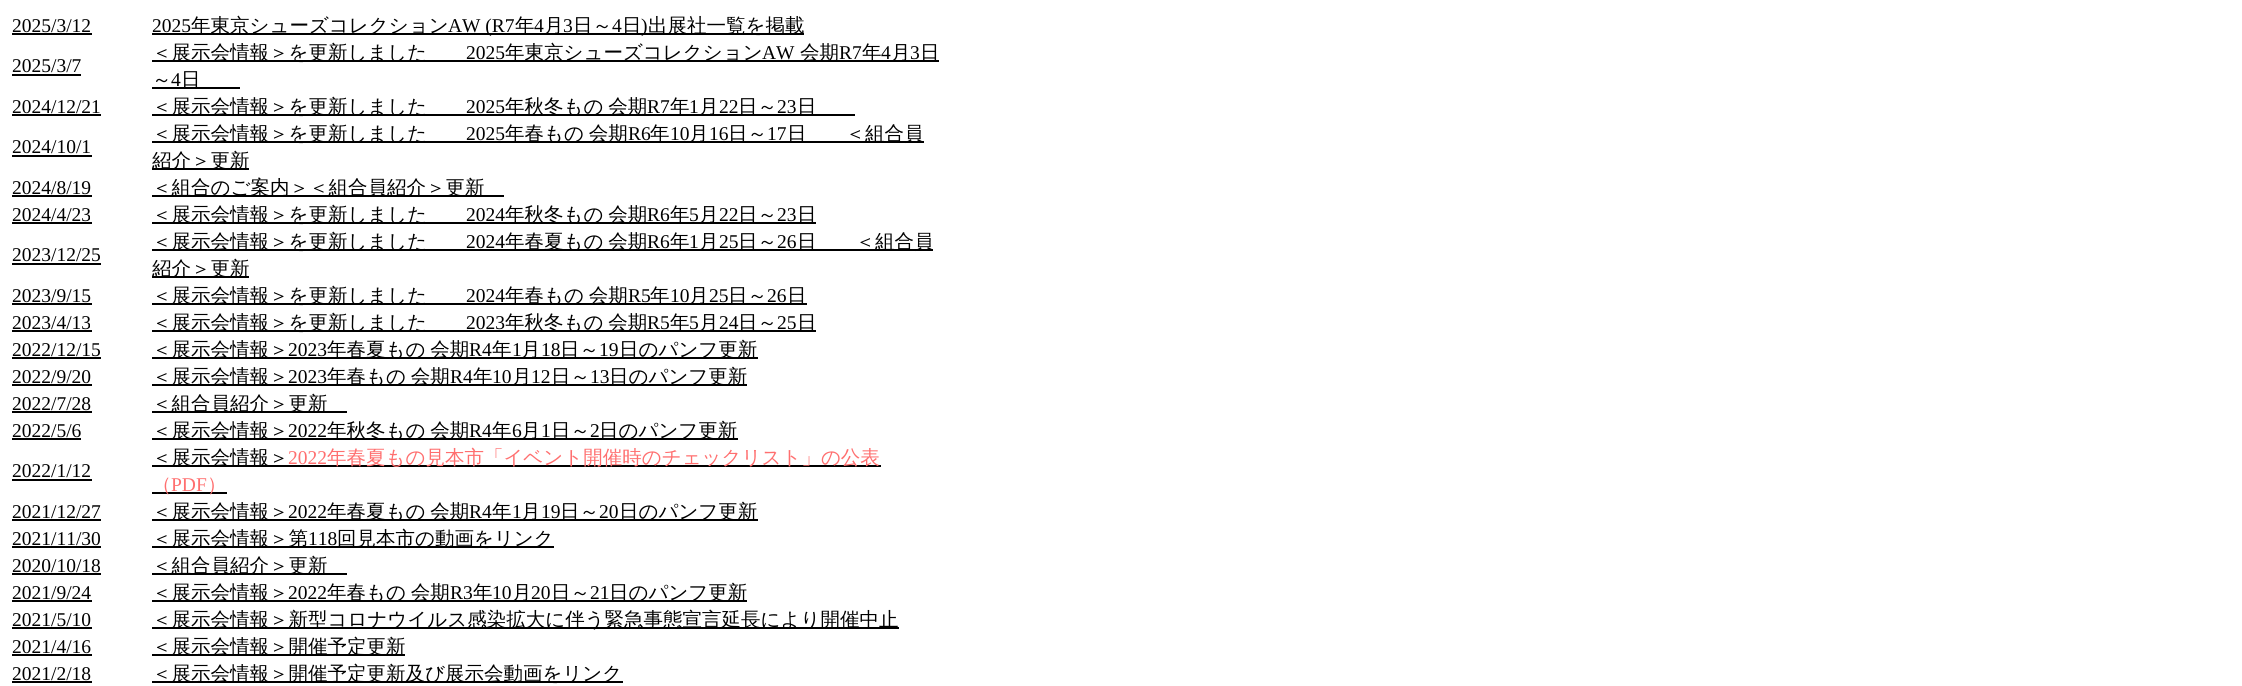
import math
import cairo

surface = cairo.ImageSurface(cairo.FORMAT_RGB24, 2242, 686)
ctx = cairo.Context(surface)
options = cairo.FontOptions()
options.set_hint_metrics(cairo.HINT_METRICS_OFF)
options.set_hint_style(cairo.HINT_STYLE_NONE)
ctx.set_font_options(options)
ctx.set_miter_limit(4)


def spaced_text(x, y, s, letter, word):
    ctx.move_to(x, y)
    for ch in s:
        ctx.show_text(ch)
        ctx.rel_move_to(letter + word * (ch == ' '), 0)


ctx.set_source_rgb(1, 1, 1)
ctx.paint()
ctx.select_font_face("Liberation Serif")
ctx.set_font_size(19.5)
ctx.set_source_rgb(0, 0, 0)
ctx.move_to(12, 32)
ctx.show_text("2025/3/12")
ctx.rectangle(12, 33, 80, 2)
ctx.fill()
ctx.move_to(152, 32)
ctx.show_text("2025")
ctx.rectangle(152, 33, 652, 2)
ctx.fill()
ctx.select_font_face("WenQuanYi Zen Hei Medium")
ctx.move_to(191, 32)
ctx.show_text("年東京シューズコレクション")
ctx.select_font_face("Liberation Serif")
ctx.move_to(448, 32)
ctx.show_text("AW (R7")
ctx.select_font_face("WenQuanYi Zen Hei Medium")
ctx.move_to(515, 32)
ctx.show_text("年")
ctx.select_font_face("Liberation Serif")
ctx.move_to(534, 32)
ctx.show_text("4")
ctx.select_font_face("WenQuanYi Zen Hei Medium")
ctx.move_to(544, 32)
ctx.show_text("月")
ctx.select_font_face("Liberation Serif")
ctx.move_to(563, 32)
ctx.show_text("3")
ctx.select_font_face("WenQuanYi Zen Hei Medium")
ctx.move_to(573, 32)
ctx.show_text("日～")
ctx.select_font_face("Liberation Serif")
ctx.move_to(612, 32)
ctx.show_text("4")
ctx.select_font_face("WenQuanYi Zen Hei Medium")
ctx.move_to(622, 32)
ctx.show_text("日")
ctx.select_font_face("Liberation Serif")
ctx.move_to(641, 32)
ctx.show_text(")")
ctx.select_font_face("WenQuanYi Zen Hei Medium")
ctx.move_to(648, 32)
ctx.show_text("出展社一覧を掲載")
ctx.select_font_face("Liberation Serif")
ctx.move_to(12, 72)
ctx.show_text("2025/3/7")
ctx.rectangle(12, 74, 69, 2)
ctx.fill()
ctx.rectangle(152, 60, 787, 2)
ctx.fill()
ctx.select_font_face("WenQuanYi Zen Hei Medium")
ctx.move_to(152, 59)
ctx.show_text("＜展示会情報＞を更新しました")
ctx.select_font_face("Liberation Serif")
ctx.move_to(466, 59)
ctx.show_text("2025")
ctx.select_font_face("WenQuanYi Zen Hei Medium")
ctx.move_to(505, 59)
ctx.show_text("年東京シューズコレクション")
ctx.select_font_face("Liberation Serif")
ctx.move_to(762, 59)
ctx.show_text("AW")
ctx.select_font_face("WenQuanYi Zen Hei Medium")
ctx.move_to(800, 59)
ctx.show_text("会期")
ctx.select_font_face("Liberation Serif")
ctx.move_to(839, 59)
ctx.show_text("R7")
ctx.select_font_face("WenQuanYi Zen Hei Medium")
ctx.move_to(862, 59)
ctx.show_text("年")
ctx.select_font_face("Liberation Serif")
ctx.move_to(881, 59)
ctx.show_text("4")
ctx.select_font_face("WenQuanYi Zen Hei Medium")
ctx.move_to(891, 59)
ctx.show_text("月")
ctx.select_font_face("Liberation Serif")
ctx.move_to(910, 59)
ctx.show_text("3")
ctx.select_font_face("WenQuanYi Zen Hei Medium")
ctx.move_to(920, 59)
ctx.show_text("日")
ctx.move_to(152, 86)
ctx.show_text("～")
ctx.rectangle(152, 87, 88, 2)
ctx.fill()
ctx.select_font_face("Liberation Serif")
ctx.move_to(171, 86)
ctx.show_text("4")
ctx.select_font_face("WenQuanYi Zen Hei Medium")
ctx.move_to(181, 86)
ctx.show_text("日")
ctx.select_font_face("Liberation Serif")
ctx.move_to(12, 113)
ctx.show_text("2024/12/21")
ctx.rectangle(12, 114, 89, 2)
ctx.fill()
ctx.rectangle(152, 114, 703, 2)
ctx.fill()
ctx.select_font_face("WenQuanYi Zen Hei Medium")
ctx.move_to(152, 113)
ctx.show_text("＜展示会情報＞を更新しました")
ctx.select_font_face("Liberation Serif")
ctx.move_to(466, 113)
ctx.show_text("2025")
ctx.select_font_face("WenQuanYi Zen Hei Medium")
spaced_text(505, 113, "年秋冬もの 会期", 0, -1)
ctx.select_font_face("Liberation Serif")
ctx.move_to(647, 113)
ctx.show_text("R7")
ctx.select_font_face("WenQuanYi Zen Hei Medium")
ctx.move_to(670, 113)
ctx.show_text("年")
ctx.select_font_face("Liberation Serif")
ctx.move_to(689, 113)
ctx.show_text("1")
ctx.select_font_face("WenQuanYi Zen Hei Medium")
ctx.move_to(699, 113)
ctx.show_text("月")
ctx.select_font_face("Liberation Serif")
ctx.move_to(719, 113)
ctx.show_text("22")
ctx.select_font_face("WenQuanYi Zen Hei Medium")
ctx.move_to(738, 113)
ctx.show_text("日～")
ctx.select_font_face("Liberation Serif")
ctx.move_to(777, 113)
ctx.show_text("23")
ctx.select_font_face("WenQuanYi Zen Hei Medium")
ctx.move_to(797, 113)
ctx.show_text("日")
ctx.select_font_face("Liberation Serif")
ctx.move_to(12, 153)
ctx.show_text("2024/10/1")
ctx.rectangle(12, 155, 80, 2)
ctx.fill()
ctx.rectangle(152, 141, 772, 2)
ctx.fill()
ctx.select_font_face("WenQuanYi Zen Hei Medium")
ctx.move_to(152, 140)
ctx.show_text("＜展示会情報＞を更新しました")
ctx.select_font_face("Liberation Serif")
ctx.move_to(466, 140)
ctx.show_text("2025")
ctx.select_font_face("WenQuanYi Zen Hei Medium")
spaced_text(505, 140, "年春もの 会期", 0, -1)
ctx.select_font_face("Liberation Serif")
ctx.move_to(628, 140)
ctx.show_text("R6")
ctx.select_font_face("WenQuanYi Zen Hei Medium")
ctx.move_to(650, 140)
ctx.show_text("年")
ctx.select_font_face("Liberation Serif")
ctx.move_to(670, 140)
ctx.show_text("10")
ctx.select_font_face("WenQuanYi Zen Hei Medium")
ctx.move_to(689, 140)
ctx.show_text("月")
ctx.select_font_face("Liberation Serif")
ctx.move_to(709, 140)
ctx.show_text("16")
ctx.select_font_face("WenQuanYi Zen Hei Medium")
ctx.move_to(728, 140)
ctx.show_text("日～")
ctx.select_font_face("Liberation Serif")
ctx.move_to(767, 140)
ctx.show_text("17")
ctx.select_font_face("WenQuanYi Zen Hei Medium")
ctx.move_to(787, 140)
ctx.show_text("日　　＜組合員")
ctx.rectangle(152, 168, 97, 2)
ctx.fill()
ctx.move_to(152, 167)
ctx.show_text("紹介＞更新")
ctx.select_font_face("Liberation Serif")
ctx.move_to(12, 194)
ctx.show_text("2024/8/19")
ctx.rectangle(12, 195, 80, 2)
ctx.fill()
ctx.rectangle(152, 195, 352, 2)
ctx.fill()
ctx.select_font_face("WenQuanYi Zen Hei Medium")
ctx.move_to(152, 194)
ctx.show_text("＜組合のご案内＞＜組合員紹介＞更新")
ctx.select_font_face("Liberation Serif")
ctx.move_to(12, 221)
ctx.show_text("2024/4/23")
ctx.rectangle(12, 222, 80, 2)
ctx.fill()
ctx.rectangle(152, 222, 664, 2)
ctx.fill()
ctx.select_font_face("WenQuanYi Zen Hei Medium")
ctx.move_to(152, 221)
ctx.show_text("＜展示会情報＞を更新しました")
ctx.select_font_face("Liberation Serif")
ctx.move_to(466, 221)
ctx.show_text("2024")
ctx.select_font_face("WenQuanYi Zen Hei Medium")
spaced_text(505, 221, "年秋冬もの 会期", 0, -1)
ctx.select_font_face("Liberation Serif")
ctx.move_to(647, 221)
ctx.show_text("R6")
ctx.select_font_face("WenQuanYi Zen Hei Medium")
ctx.move_to(670, 221)
ctx.show_text("年")
ctx.select_font_face("Liberation Serif")
ctx.move_to(689, 221)
ctx.show_text("5")
ctx.select_font_face("WenQuanYi Zen Hei Medium")
ctx.move_to(699, 221)
ctx.show_text("月")
ctx.select_font_face("Liberation Serif")
ctx.move_to(719, 221)
ctx.show_text("22")
ctx.select_font_face("WenQuanYi Zen Hei Medium")
ctx.move_to(738, 221)
ctx.show_text("日～")
ctx.select_font_face("Liberation Serif")
ctx.move_to(777, 221)
ctx.show_text("23")
ctx.select_font_face("WenQuanYi Zen Hei Medium")
ctx.move_to(797, 221)
ctx.show_text("日")
ctx.select_font_face("Liberation Serif")
ctx.move_to(12, 261)
ctx.show_text("2023/12/25")
ctx.rectangle(12, 263, 89, 2)
ctx.fill()
ctx.rectangle(152, 249, 781, 2)
ctx.fill()
ctx.select_font_face("WenQuanYi Zen Hei Medium")
ctx.move_to(152, 248)
ctx.show_text("＜展示会情報＞を更新しました")
ctx.select_font_face("Liberation Serif")
ctx.move_to(466, 248)
ctx.show_text("2024")
ctx.select_font_face("WenQuanYi Zen Hei Medium")
spaced_text(505, 248, "年春夏もの 会期", 0, -1)
ctx.select_font_face("Liberation Serif")
ctx.move_to(647, 248)
ctx.show_text("R6")
ctx.select_font_face("WenQuanYi Zen Hei Medium")
ctx.move_to(670, 248)
ctx.show_text("年")
ctx.select_font_face("Liberation Serif")
ctx.move_to(689, 248)
ctx.show_text("1")
ctx.select_font_face("WenQuanYi Zen Hei Medium")
ctx.move_to(699, 248)
ctx.show_text("月")
ctx.select_font_face("Liberation Serif")
ctx.move_to(719, 248)
ctx.show_text("25")
ctx.select_font_face("WenQuanYi Zen Hei Medium")
ctx.move_to(738, 248)
ctx.show_text("日～")
ctx.select_font_face("Liberation Serif")
ctx.move_to(777, 248)
ctx.show_text("26")
ctx.select_font_face("WenQuanYi Zen Hei Medium")
ctx.move_to(797, 248)
ctx.show_text("日　　＜組合員")
ctx.rectangle(152, 276, 97, 2)
ctx.fill()
ctx.move_to(152, 275)
ctx.show_text("紹介＞更新")
ctx.select_font_face("Liberation Serif")
ctx.move_to(12, 302)
ctx.show_text("2023/9/15")
ctx.rectangle(12, 303, 80, 2)
ctx.fill()
ctx.rectangle(152, 303, 655, 2)
ctx.fill()
ctx.select_font_face("WenQuanYi Zen Hei Medium")
ctx.move_to(152, 302)
ctx.show_text("＜展示会情報＞を更新しました")
ctx.select_font_face("Liberation Serif")
ctx.move_to(466, 302)
ctx.show_text("2024")
ctx.select_font_face("WenQuanYi Zen Hei Medium")
spaced_text(505, 302, "年春もの 会期", 0, -1)
ctx.select_font_face("Liberation Serif")
ctx.move_to(628, 302)
ctx.show_text("R5")
ctx.select_font_face("WenQuanYi Zen Hei Medium")
ctx.move_to(650, 302)
ctx.show_text("年")
ctx.select_font_face("Liberation Serif")
ctx.move_to(670, 302)
ctx.show_text("10")
ctx.select_font_face("WenQuanYi Zen Hei Medium")
ctx.move_to(689, 302)
ctx.show_text("月")
ctx.select_font_face("Liberation Serif")
ctx.move_to(709, 302)
ctx.show_text("25")
ctx.select_font_face("WenQuanYi Zen Hei Medium")
ctx.move_to(728, 302)
ctx.show_text("日～")
ctx.select_font_face("Liberation Serif")
ctx.move_to(767, 302)
ctx.show_text("26")
ctx.select_font_face("WenQuanYi Zen Hei Medium")
ctx.move_to(787, 302)
ctx.show_text("日")
ctx.select_font_face("Liberation Serif")
ctx.move_to(12, 329)
ctx.show_text("2023/4/13")
ctx.rectangle(12, 330, 80, 2)
ctx.fill()
ctx.rectangle(152, 330, 664, 2)
ctx.fill()
ctx.select_font_face("WenQuanYi Zen Hei Medium")
ctx.move_to(152, 329)
ctx.show_text("＜展示会情報＞を更新しました")
ctx.select_font_face("Liberation Serif")
ctx.move_to(466, 329)
ctx.show_text("2023")
ctx.select_font_face("WenQuanYi Zen Hei Medium")
spaced_text(505, 329, "年秋冬もの 会期", 0, -1)
ctx.select_font_face("Liberation Serif")
ctx.move_to(647, 329)
ctx.show_text("R5")
ctx.select_font_face("WenQuanYi Zen Hei Medium")
ctx.move_to(670, 329)
ctx.show_text("年")
ctx.select_font_face("Liberation Serif")
ctx.move_to(689, 329)
ctx.show_text("5")
ctx.select_font_face("WenQuanYi Zen Hei Medium")
ctx.move_to(699, 329)
ctx.show_text("月")
ctx.select_font_face("Liberation Serif")
ctx.move_to(719, 329)
ctx.show_text("24")
ctx.select_font_face("WenQuanYi Zen Hei Medium")
ctx.move_to(738, 329)
ctx.show_text("日～")
ctx.select_font_face("Liberation Serif")
ctx.move_to(777, 329)
ctx.show_text("25")
ctx.select_font_face("WenQuanYi Zen Hei Medium")
ctx.move_to(797, 329)
ctx.show_text("日")
ctx.select_font_face("Liberation Serif")
ctx.move_to(12, 356)
ctx.show_text("2022/12/15")
ctx.rectangle(12, 357, 89, 2)
ctx.fill()
ctx.rectangle(152, 357, 606, 2)
ctx.fill()
ctx.select_font_face("WenQuanYi Zen Hei Medium")
ctx.move_to(152, 356)
ctx.show_text("＜展示会情報＞")
ctx.select_font_face("Liberation Serif")
ctx.move_to(288, 356)
ctx.show_text("2023")
ctx.select_font_face("WenQuanYi Zen Hei Medium")
spaced_text(327, 356, "年春夏もの 会期", 0, -1)
ctx.select_font_face("Liberation Serif")
ctx.move_to(469, 356)
ctx.show_text("R4")
ctx.select_font_face("WenQuanYi Zen Hei Medium")
ctx.move_to(492, 356)
ctx.show_text("年")
ctx.select_font_face("Liberation Serif")
ctx.move_to(512, 356)
ctx.show_text("1")
ctx.select_font_face("WenQuanYi Zen Hei Medium")
ctx.move_to(521, 356)
ctx.show_text("月")
ctx.select_font_face("Liberation Serif")
ctx.move_to(541, 356)
ctx.show_text("18")
ctx.select_font_face("WenQuanYi Zen Hei Medium")
ctx.move_to(560, 356)
ctx.show_text("日～")
ctx.select_font_face("Liberation Serif")
ctx.move_to(599, 356)
ctx.show_text("19")
ctx.select_font_face("WenQuanYi Zen Hei Medium")
ctx.move_to(619, 356)
ctx.show_text("日のパンフ更新")
ctx.select_font_face("Liberation Serif")
ctx.move_to(12, 383)
ctx.show_text("2022/9/20")
ctx.rectangle(12, 384, 80, 2)
ctx.fill()
ctx.rectangle(152, 384, 595, 2)
ctx.fill()
ctx.select_font_face("WenQuanYi Zen Hei Medium")
ctx.move_to(152, 383)
ctx.show_text("＜展示会情報＞")
ctx.select_font_face("Liberation Serif")
ctx.move_to(288, 383)
ctx.show_text("2023")
ctx.select_font_face("WenQuanYi Zen Hei Medium")
spaced_text(327, 383, "年春もの 会期", 0, -1)
ctx.select_font_face("Liberation Serif")
ctx.move_to(450, 383)
ctx.show_text("R4")
ctx.select_font_face("WenQuanYi Zen Hei Medium")
ctx.move_to(473, 383)
ctx.show_text("年")
ctx.select_font_face("Liberation Serif")
ctx.move_to(492, 383)
ctx.show_text("10")
ctx.select_font_face("WenQuanYi Zen Hei Medium")
ctx.move_to(512, 383)
ctx.show_text("月")
ctx.select_font_face("Liberation Serif")
ctx.move_to(531, 383)
ctx.show_text("12")
ctx.select_font_face("WenQuanYi Zen Hei Medium")
ctx.move_to(551, 383)
ctx.show_text("日～")
ctx.select_font_face("Liberation Serif")
ctx.move_to(590, 383)
ctx.show_text("13")
ctx.select_font_face("WenQuanYi Zen Hei Medium")
ctx.move_to(609, 383)
ctx.show_text("日のパンフ更新")
ctx.select_font_face("Liberation Serif")
ctx.move_to(12, 410)
ctx.show_text("2022/7/28")
ctx.rectangle(12, 411, 80, 2)
ctx.fill()
ctx.rectangle(152, 411, 195, 2)
ctx.fill()
ctx.select_font_face("WenQuanYi Zen Hei Medium")
ctx.move_to(152, 410)
ctx.show_text("＜組合員紹介＞更新")
ctx.select_font_face("Liberation Serif")
ctx.move_to(12, 437)
ctx.show_text("2022/5/6")
ctx.rectangle(12, 438, 69, 2)
ctx.fill()
ctx.rectangle(152, 438, 586, 2)
ctx.fill()
ctx.select_font_face("WenQuanYi Zen Hei Medium")
ctx.move_to(152, 437)
ctx.show_text("＜展示会情報＞")
ctx.select_font_face("Liberation Serif")
ctx.move_to(288, 437)
ctx.show_text("2022")
ctx.select_font_face("WenQuanYi Zen Hei Medium")
spaced_text(327, 437, "年秋冬もの 会期", 0, -1)
ctx.select_font_face("Liberation Serif")
ctx.move_to(469, 437)
ctx.show_text("R4")
ctx.select_font_face("WenQuanYi Zen Hei Medium")
ctx.move_to(492, 437)
ctx.show_text("年")
ctx.select_font_face("Liberation Serif")
ctx.move_to(512, 437)
ctx.show_text("6")
ctx.select_font_face("WenQuanYi Zen Hei Medium")
ctx.move_to(521, 437)
ctx.show_text("月")
ctx.select_font_face("Liberation Serif")
ctx.move_to(541, 437)
ctx.show_text("1")
ctx.select_font_face("WenQuanYi Zen Hei Medium")
ctx.move_to(551, 437)
ctx.show_text("日～")
ctx.select_font_face("Liberation Serif")
ctx.move_to(590, 437)
ctx.show_text("2")
ctx.select_font_face("WenQuanYi Zen Hei Medium")
ctx.move_to(599, 437)
ctx.show_text("日のパンフ更新")
ctx.select_font_face("Liberation Serif")
ctx.move_to(12, 477)
ctx.show_text("2022/1/12")
ctx.rectangle(12, 479, 80, 2)
ctx.fill()
ctx.rectangle(152, 465, 729, 2)
ctx.fill()
ctx.select_font_face("WenQuanYi Zen Hei Medium")
ctx.move_to(152, 464)
ctx.show_text("＜展示会情報＞")
ctx.select_font_face("Liberation Serif")
ctx.set_source_rgb(1, 0.435, 0.435)
ctx.move_to(288, 464)
ctx.show_text("2022")
ctx.select_font_face("WenQuanYi Zen Hei Medium")
ctx.move_to(327, 464)
ctx.show_text("年春夏もの見本市「イベント開催時のチェックリスト」の公表")
ctx.set_source_rgb(0, 0, 0)
ctx.rectangle(152, 492, 75, 2)
ctx.fill()
ctx.set_source_rgb(1, 0.435, 0.435)
ctx.move_to(152, 491)
ctx.show_text("（")
ctx.select_font_face("Liberation Serif")
ctx.move_to(171, 491)
ctx.show_text("PDF")
ctx.select_font_face("WenQuanYi Zen Hei Medium")
ctx.move_to(207, 491)
ctx.show_text("）")
ctx.select_font_face("Liberation Serif")
ctx.set_source_rgb(0, 0, 0)
ctx.move_to(12, 518)
ctx.show_text("2021/12/27")
ctx.rectangle(12, 519, 89, 2)
ctx.fill()
ctx.rectangle(152, 519, 606, 2)
ctx.fill()
ctx.select_font_face("WenQuanYi Zen Hei Medium")
ctx.move_to(152, 518)
ctx.show_text("＜展示会情報＞")
ctx.select_font_face("Liberation Serif")
ctx.move_to(288, 518)
ctx.show_text("2022")
ctx.select_font_face("WenQuanYi Zen Hei Medium")
spaced_text(327, 518, "年春夏もの 会期", 0, -1)
ctx.select_font_face("Liberation Serif")
ctx.move_to(469, 518)
ctx.show_text("R4")
ctx.select_font_face("WenQuanYi Zen Hei Medium")
ctx.move_to(492, 518)
ctx.show_text("年")
ctx.select_font_face("Liberation Serif")
ctx.move_to(512, 518)
ctx.show_text("1")
ctx.select_font_face("WenQuanYi Zen Hei Medium")
ctx.move_to(521, 518)
ctx.show_text("月")
ctx.select_font_face("Liberation Serif")
ctx.move_to(541, 518)
ctx.show_text("19")
ctx.select_font_face("WenQuanYi Zen Hei Medium")
ctx.move_to(560, 518)
ctx.show_text("日～")
ctx.select_font_face("Liberation Serif")
ctx.move_to(599, 518)
ctx.show_text("20")
ctx.select_font_face("WenQuanYi Zen Hei Medium")
ctx.move_to(619, 518)
ctx.show_text("日のパンフ更新")
ctx.select_font_face("Liberation Serif")
ctx.move_to(12, 545)
ctx.show_text("2021/11/30")
ctx.rectangle(12, 546, 89, 2)
ctx.fill()
ctx.rectangle(152, 546, 402, 2)
ctx.fill()
ctx.select_font_face("WenQuanYi Zen Hei Medium")
ctx.move_to(152, 545)
ctx.show_text("＜展示会情報＞第")
ctx.select_font_face("Liberation Serif")
ctx.move_to(308, 545)
ctx.show_text("118")
ctx.select_font_face("WenQuanYi Zen Hei Medium")
ctx.move_to(337, 545)
ctx.show_text("回見本市の動画をリンク")
ctx.select_font_face("Liberation Serif")
ctx.move_to(12, 572)
ctx.show_text("2020/10/18")
ctx.rectangle(12, 573, 89, 2)
ctx.fill()
ctx.rectangle(152, 573, 195, 2)
ctx.fill()
ctx.select_font_face("WenQuanYi Zen Hei Medium")
ctx.move_to(152, 572)
ctx.show_text("＜組合員紹介＞更新")
ctx.select_font_face("Liberation Serif")
ctx.move_to(12, 599)
ctx.show_text("2021/9/24")
ctx.rectangle(12, 600, 80, 2)
ctx.fill()
ctx.rectangle(152, 600, 595, 2)
ctx.fill()
ctx.select_font_face("WenQuanYi Zen Hei Medium")
ctx.move_to(152, 599)
ctx.show_text("＜展示会情報＞")
ctx.select_font_face("Liberation Serif")
ctx.move_to(288, 599)
ctx.show_text("2022")
ctx.select_font_face("WenQuanYi Zen Hei Medium")
spaced_text(327, 599, "年春もの 会期", 0, -1)
ctx.select_font_face("Liberation Serif")
ctx.move_to(450, 599)
ctx.show_text("R3")
ctx.select_font_face("WenQuanYi Zen Hei Medium")
ctx.move_to(473, 599)
ctx.show_text("年")
ctx.select_font_face("Liberation Serif")
ctx.move_to(492, 599)
ctx.show_text("10")
ctx.select_font_face("WenQuanYi Zen Hei Medium")
ctx.move_to(512, 599)
ctx.show_text("月")
ctx.select_font_face("Liberation Serif")
ctx.move_to(531, 599)
ctx.show_text("20")
ctx.select_font_face("WenQuanYi Zen Hei Medium")
ctx.move_to(551, 599)
ctx.show_text("日～")
ctx.select_font_face("Liberation Serif")
ctx.move_to(590, 599)
ctx.show_text("21")
ctx.select_font_face("WenQuanYi Zen Hei Medium")
ctx.move_to(609, 599)
ctx.show_text("日のパンフ更新")
ctx.select_font_face("Liberation Serif")
ctx.move_to(12, 626)
ctx.show_text("2021/5/10")
ctx.rectangle(12, 627, 80, 2)
ctx.fill()
ctx.rectangle(152, 627, 747, 2)
ctx.fill()
ctx.select_font_face("WenQuanYi Zen Hei Medium")
ctx.move_to(152, 626)
ctx.show_text("＜展示会情報＞新型コロナウイルス感染拡大に伴う緊急事態宣言延長により開催中止")
ctx.select_font_face("Liberation Serif")
ctx.move_to(12, 653)
ctx.show_text("2021/4/16")
ctx.rectangle(12, 654, 80, 2)
ctx.fill()
ctx.rectangle(152, 654, 253, 2)
ctx.fill()
ctx.select_font_face("WenQuanYi Zen Hei Medium")
ctx.move_to(152, 653)
ctx.show_text("＜展示会情報＞開催予定更新")
ctx.select_font_face("Liberation Serif")
ctx.move_to(12, 680)
ctx.show_text("2021/2/18")
ctx.rectangle(12, 681, 80, 2)
ctx.fill()
ctx.rectangle(152, 681, 471, 2)
ctx.fill()
ctx.select_font_face("WenQuanYi Zen Hei Medium")
ctx.move_to(152, 680)
ctx.show_text("＜展示会情報＞開催予定更新及び展示会動画をリンク")
surface.write_to_png("page.png")
